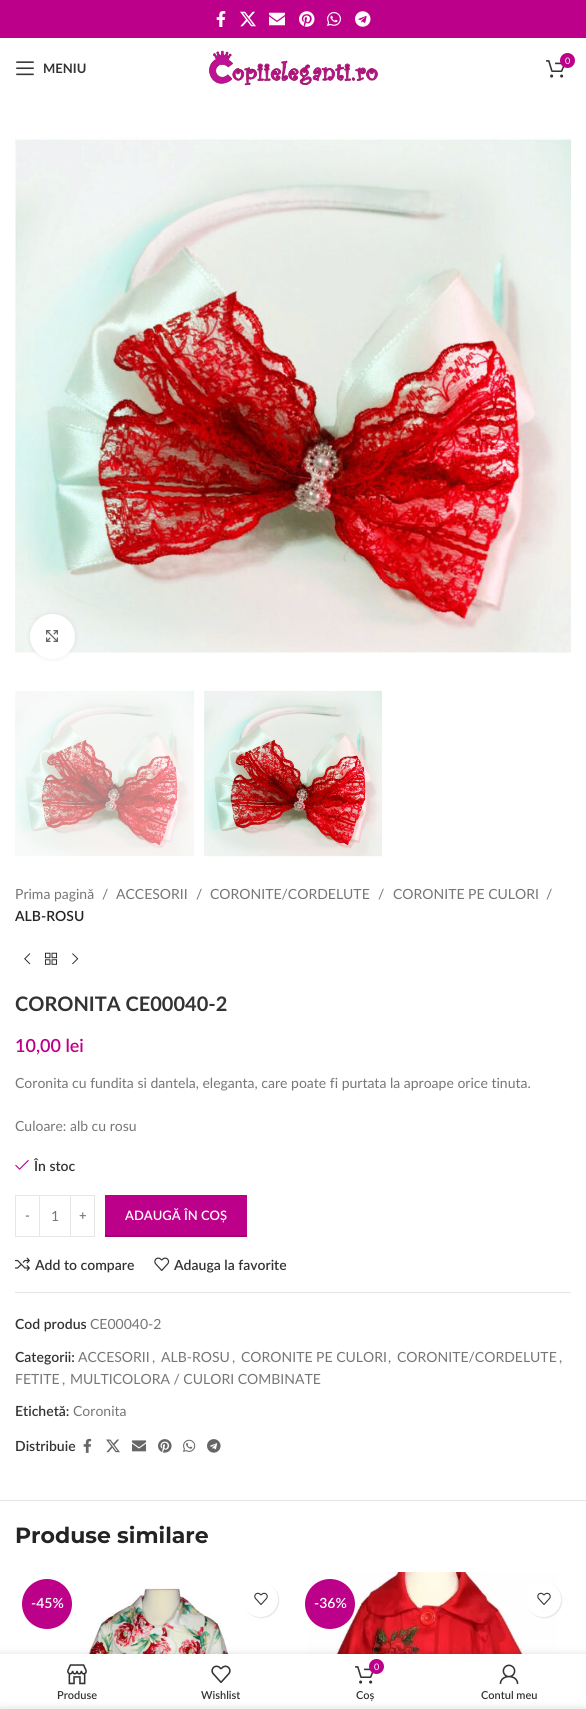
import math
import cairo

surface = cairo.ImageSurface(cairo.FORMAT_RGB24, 586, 1709)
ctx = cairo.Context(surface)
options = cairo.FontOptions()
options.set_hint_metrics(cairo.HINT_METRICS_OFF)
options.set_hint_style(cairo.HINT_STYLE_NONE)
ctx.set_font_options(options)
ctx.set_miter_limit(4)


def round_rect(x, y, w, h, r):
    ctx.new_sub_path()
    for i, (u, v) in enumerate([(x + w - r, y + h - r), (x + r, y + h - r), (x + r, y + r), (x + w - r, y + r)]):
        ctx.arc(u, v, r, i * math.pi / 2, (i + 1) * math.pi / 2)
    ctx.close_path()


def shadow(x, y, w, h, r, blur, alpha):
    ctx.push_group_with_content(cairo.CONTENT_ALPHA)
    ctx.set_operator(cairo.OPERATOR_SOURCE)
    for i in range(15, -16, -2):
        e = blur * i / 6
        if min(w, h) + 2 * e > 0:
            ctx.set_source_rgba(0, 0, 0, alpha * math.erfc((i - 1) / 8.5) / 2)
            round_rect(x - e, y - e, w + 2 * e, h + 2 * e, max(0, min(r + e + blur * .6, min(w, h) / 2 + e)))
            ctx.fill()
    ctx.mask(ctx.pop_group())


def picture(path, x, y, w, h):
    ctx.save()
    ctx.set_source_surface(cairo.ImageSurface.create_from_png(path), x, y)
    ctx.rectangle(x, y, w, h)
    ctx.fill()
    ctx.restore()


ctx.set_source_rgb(1, 1, 1)
ctx.paint()
ctx.set_source_rgb(0.737, 0, 0.537)
ctx.rectangle(0, 0, 586, 38)
ctx.fill()
picture("img1.png", 216, 11, 10, 16)
picture("img2.png", 240, 11, 16, 16)
picture("img3.png", 269, 12, 16, 14)
picture("img4.png", 299, 11, 16, 16)
picture("img5.png", 327, 12, 14, 14)
picture("img6.png", 355, 11, 16, 16)
picture("img7.png", 209, 50, 169, 36)
picture("img8.png", 546, 60, 19, 18)
ctx.arc(567.5, 60.5, 7.5, 0, 2 * math.pi)
ctx.fill()
ctx.select_font_face("Lato")
ctx.set_font_size(9)
ctx.set_source_rgb(1, 1, 1)
ctx.move_to(565, 64)
ctx.show_text("0")
picture("img9.png", 16, 61, 18, 15)
ctx.select_font_face("Lato", cairo.FONT_SLANT_NORMAL, cairo.FONT_WEIGHT_BOLD)
ctx.set_font_size(13)
ctx.set_source_rgb(0.2, 0.2, 0.2)
ctx.move_to(43, 73)
ctx.show_text("MENIU")
picture("img10.png", 15, 137, 556, 516)
ctx.set_source_rgb(0, 0, 0)
shadow(30, 614, 45, 45, 22.5, 2.5, 0.08)
ctx.set_source_rgb(1, 1, 1)
ctx.arc(52.5, 636.5, 22.5, 0, 2 * math.pi)
ctx.fill()
picture("img11.png", 46, 630, 12, 12)
picture("img12.png", 15, 691, 179, 165)
picture("img13.png", 204, 690, 178, 167)
ctx.select_font_face("Lato")
ctx.set_font_size(14)
ctx.set_source_rgb(0.463, 0.463, 0.463)
ctx.move_to(15, 899)
ctx.show_text("Prima pagină")
ctx.move_to(102, 899)
ctx.show_text("/")
ctx.move_to(116, 899)
ctx.show_text("ACCESORII")
ctx.move_to(196, 899)
ctx.show_text("/")
ctx.move_to(210, 899)
ctx.show_text("CORONITE/CORDELUTE")
ctx.move_to(378, 899)
ctx.show_text("/")
ctx.move_to(393, 899)
ctx.show_text("CORONITE PE CULORI")
ctx.move_to(546, 899)
ctx.show_text("/")
ctx.select_font_face("Lato SemiBold")
ctx.set_source_rgb(0.141, 0.141, 0.141)
ctx.move_to(15, 921)
ctx.show_text("ALB-ROSU")
picture("img14.png", 24, 953, 7, 12)
picture("img15.png", 45, 952, 12, 13)
picture("img16.png", 72, 953, 7, 12)
ctx.select_font_face("Lato", cairo.FONT_SLANT_NORMAL, cairo.FONT_WEIGHT_BOLD)
ctx.set_font_size(20)
ctx.set_source_rgb(0.2, 0.2, 0.2)
ctx.move_to(15, 1011)
ctx.show_text("CORONITA CE00040-2")
ctx.select_font_face("Lato SemiBold")
ctx.set_font_size(18)
ctx.set_source_rgb(0.737, 0, 0.537)
ctx.move_to(15, 1052)
ctx.show_text("10,00 lei")
ctx.select_font_face("Lato")
ctx.set_font_size(14)
ctx.set_source_rgb(0.463, 0.463, 0.463)
ctx.move_to(15, 1088)
ctx.show_text("Coronita cu fundita si dantela, eleganta, care poate fi purtata la aproape orice tinuta.")
ctx.move_to(15, 1131)
ctx.show_text("Culoare: alb cu rosu")
picture("img17.png", 15, 1159, 14, 11)
ctx.select_font_face("Lato SemiBold")
ctx.set_source_rgb(0.2, 0.2, 0.2)
ctx.move_to(34, 1171)
ctx.show_text("În stoc")
ctx.rectangle(15.5, 1195.5, 24, 41)
ctx.set_source_rgb(0.902, 0.902, 0.902)
ctx.set_line_width(1)
ctx.stroke()
ctx.set_font_size(13)
ctx.set_source_rgb(0.463, 0.463, 0.463)
ctx.move_to(25, 1220)
ctx.show_text("-")
ctx.set_source_rgb(0.902, 0.902, 0.902)
ctx.rectangle(40, 1195, 30, 1)
ctx.fill()
ctx.rectangle(40, 1236, 30, 1)
ctx.fill()
ctx.select_font_face("Lato")
ctx.set_font_size(14)
ctx.set_source_rgb(0.463, 0.463, 0.463)
ctx.move_to(51, 1221)
ctx.show_text("1")
ctx.rectangle(70.5, 1195.5, 24, 41)
ctx.set_source_rgb(0.902, 0.902, 0.902)
ctx.stroke()
ctx.select_font_face("Lato SemiBold")
ctx.set_font_size(13)
ctx.set_source_rgb(0.463, 0.463, 0.463)
ctx.move_to(79, 1220)
ctx.show_text("+")
ctx.set_source_rgb(0.737, 0, 0.537)
ctx.rectangle(105, 1195, 142, 40)
ctx.fill()
ctx.set_source_rgb(0.627, 0, 0.455)
ctx.rectangle(105, 1235, 142, 2)
ctx.fill()
ctx.set_source_rgb(1, 1, 1)
ctx.move_to(125, 1220)
ctx.show_text("ADAUGĂ ÎN COȘ")
picture("img18.png", 15, 1257, 15, 14)
ctx.set_font_size(14)
ctx.set_source_rgb(0.2, 0.2, 0.2)
ctx.move_to(35, 1270)
ctx.show_text("Add to compare")
picture("img19.png", 154, 1257, 16, 14)
ctx.move_to(174, 1270)
ctx.show_text("Adauga la favorite")
ctx.set_source_rgb(0.894, 0.894, 0.894)
ctx.rectangle(15, 1292, 556, 1)
ctx.fill()
ctx.set_source_rgb(0.2, 0.2, 0.2)
ctx.move_to(15, 1329)
ctx.show_text("Cod produs")
ctx.select_font_face("Lato")
ctx.set_source_rgb(0.463, 0.463, 0.463)
ctx.move_to(90, 1329)
ctx.show_text("CE00040-2")
ctx.select_font_face("Lato SemiBold")
ctx.set_source_rgb(0.2, 0.2, 0.2)
ctx.move_to(15, 1362)
ctx.show_text("Categorii:")
ctx.select_font_face("Lato")
ctx.set_source_rgb(0.463, 0.463, 0.463)
ctx.move_to(78, 1362)
ctx.show_text("ACCESORII")
ctx.move_to(152, 1362)
ctx.show_text(",")
ctx.move_to(161, 1362)
ctx.show_text("ALB-ROSU")
ctx.move_to(232, 1362)
ctx.show_text(",")
ctx.move_to(241, 1362)
ctx.show_text("CORONITE PE CULORI")
ctx.move_to(388, 1362)
ctx.show_text(",")
ctx.move_to(397, 1362)
ctx.show_text("CORONITE/CORDELUTE")
ctx.move_to(559, 1362)
ctx.show_text(",")
ctx.move_to(15, 1384)
ctx.show_text("FETITE")
ctx.move_to(62, 1384)
ctx.show_text(",")
ctx.move_to(70, 1384)
ctx.show_text("MULTICOLORA / CULORI COMBINATE")
ctx.select_font_face("Lato SemiBold")
ctx.set_source_rgb(0.2, 0.2, 0.2)
ctx.move_to(15, 1416)
ctx.show_text("Etichetă:")
ctx.select_font_face("Lato")
ctx.set_source_rgb(0.463, 0.463, 0.463)
ctx.move_to(73, 1416)
ctx.show_text("Coronita")
ctx.select_font_face("Lato SemiBold")
ctx.set_source_rgb(0.2, 0.2, 0.2)
ctx.move_to(15, 1451)
ctx.show_text("Distribuie")
picture("img20.png", 83, 1438, 9, 15)
picture("img21.png", 106, 1439, 14, 14)
picture("img22.png", 132, 1440, 14, 12)
picture("img23.png", 158, 1439, 14, 14)
picture("img24.png", 183, 1439, 13, 13)
picture("img25.png", 207, 1439, 14, 14)
ctx.set_source_rgb(0.894, 0.894, 0.894)
ctx.rectangle(0, 1500, 586, 1)
ctx.fill()
ctx.select_font_face("Montserrat", cairo.FONT_SLANT_NORMAL, cairo.FONT_WEIGHT_BOLD)
ctx.set_font_size(22)
ctx.set_source_rgb(0.141, 0.141, 0.141)
ctx.move_to(15, 1543)
ctx.show_text("Produse similare")
picture("img26.png", 67, 1587, 177, 67)
ctx.set_source_rgb(0.737, 0, 0.537)
ctx.arc(47, 1604, 25, 0, 2 * math.pi)
ctx.fill()
ctx.select_font_face("Lato SemiBold")
ctx.set_font_size(14)
ctx.set_source_rgb(1, 1, 1)
ctx.move_to(31, 1608)
ctx.show_text("-45%")
ctx.set_source_rgb(0, 0, 0)
shadow(244, 1583, 35, 35, 17.5, 0.5, 0.1)
ctx.set_source_rgb(1, 1, 1)
ctx.arc(260.5, 1599.5, 17.5, 0, 2 * math.pi)
ctx.fill()
picture("img27.png", 254, 1592, 14, 13)
picture("img28.png", 308, 1572, 250, 82)
ctx.set_source_rgb(0.737, 0, 0.537)
ctx.arc(330, 1604, 25, 0, 2 * math.pi)
ctx.fill()
ctx.set_source_rgb(1, 1, 1)
ctx.move_to(314, 1608)
ctx.show_text("-36%")
ctx.set_source_rgb(0, 0, 0)
shadow(527, 1583, 35, 35, 17.5, 0.5, 0.1)
ctx.set_source_rgb(1, 1, 1)
ctx.arc(543.5, 1599.5, 17.5, 0, 2 * math.pi)
ctx.fill()
picture("img27.png", 537, 1592, 14, 13)
ctx.set_source_rgb(0, 0, 0)
shadow(0, 1654, 586, 55, 0, 4.5, 0.12)
ctx.set_source_rgb(1, 1, 1)
ctx.rectangle(0, 1654, 586, 55)
ctx.fill()
picture("img29.png", 67, 1664, 20, 21)
ctx.set_font_size(11)
ctx.set_source_rgb(0.2, 0.2, 0.2)
ctx.move_to(57, 1699)
ctx.show_text("Produse")
picture("img30.png", 211, 1665, 20, 18)
ctx.move_to(201, 1699)
ctx.show_text("Wishlist")
picture("img8.png", 355, 1666, 19, 18)
ctx.set_source_rgb(0.737, 0, 0.537)
ctx.arc(376.5, 1666.5, 7.5, 0, 2 * math.pi)
ctx.fill()
ctx.select_font_face("Lato")
ctx.set_font_size(9)
ctx.set_source_rgb(1, 1, 1)
ctx.move_to(374, 1670)
ctx.show_text("0")
ctx.select_font_face("Lato SemiBold")
ctx.set_font_size(11)
ctx.set_source_rgb(0.2, 0.2, 0.2)
ctx.move_to(356, 1699)
ctx.show_text("Coș")
picture("img31.png", 499, 1664, 20, 20)
ctx.move_to(481, 1699)
ctx.show_text("Contul meu")
ctx.set_source_rgb(0, 0, 0)
shadow(0, 1709, 586, 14, 0, 4.5, 0.14)
surface.write_to_png("page.png")
